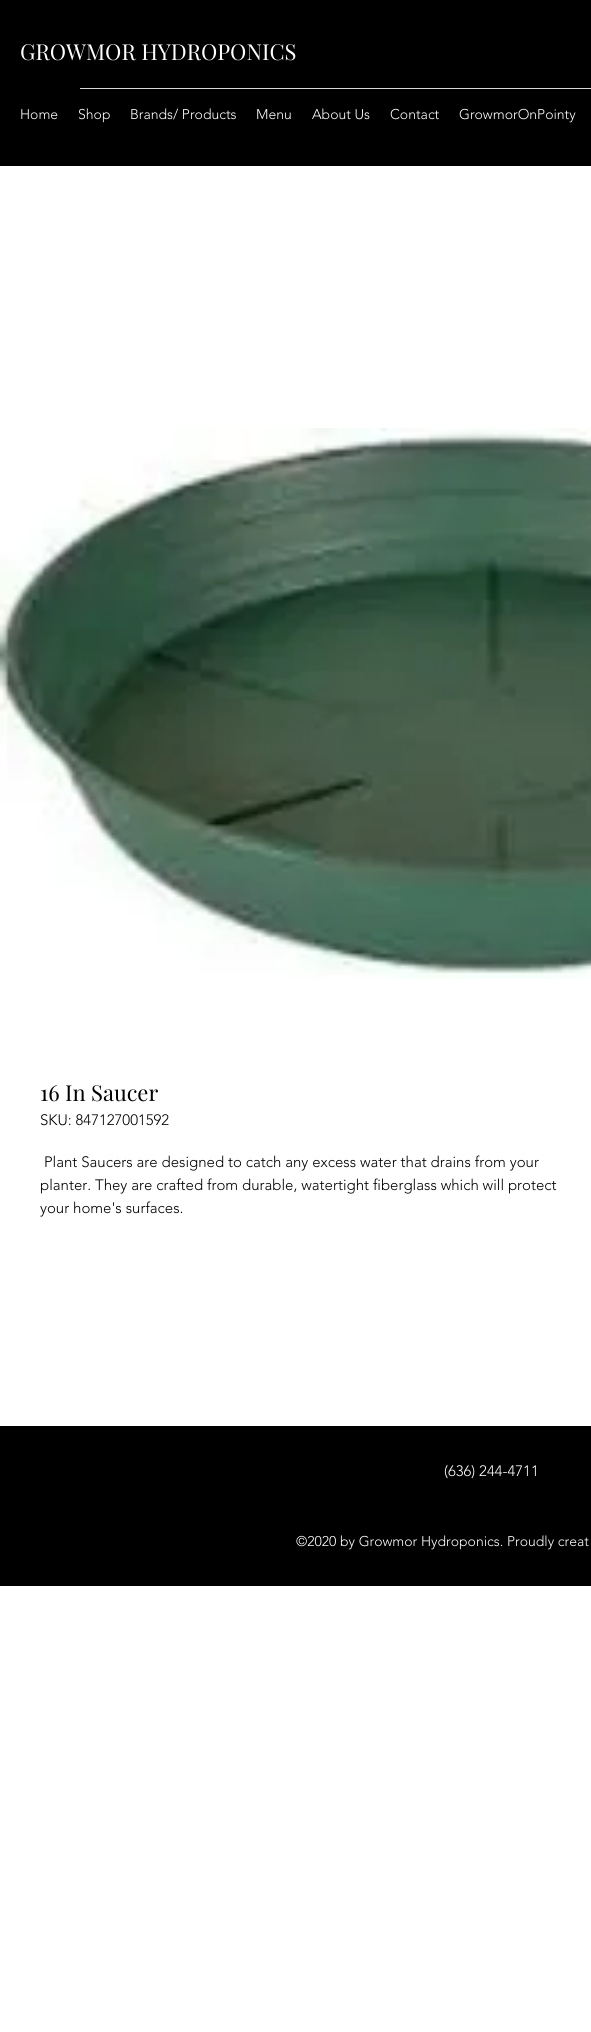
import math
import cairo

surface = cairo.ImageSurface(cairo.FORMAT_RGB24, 591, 2032)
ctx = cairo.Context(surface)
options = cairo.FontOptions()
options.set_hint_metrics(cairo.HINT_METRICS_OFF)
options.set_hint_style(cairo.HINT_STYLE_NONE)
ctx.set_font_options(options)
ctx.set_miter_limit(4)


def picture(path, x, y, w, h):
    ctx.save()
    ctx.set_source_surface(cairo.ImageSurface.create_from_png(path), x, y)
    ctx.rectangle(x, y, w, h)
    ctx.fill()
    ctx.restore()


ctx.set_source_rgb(1, 1, 1)
ctx.paint()
ctx.set_source_rgb(0, 0, 0)
ctx.rectangle(0, 0, 591, 166)
ctx.fill()
ctx.select_font_face("Playfair Display")
ctx.set_font_size(22)
ctx.set_source_rgb(1, 1, 1)
ctx.move_to(20, 60)
ctx.show_text("GROWMOR HYDROPONICS")
ctx.set_source_rgb(0.851, 0.851, 0.851)
ctx.rectangle(80, 88, 511, 1)
ctx.fill()
ctx.select_font_face("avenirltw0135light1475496 Light")
ctx.set_font_size(14)
ctx.set_source_rgb(1, 1, 1)
ctx.move_to(20, 119)
ctx.show_text("Home")
ctx.move_to(78, 119)
ctx.show_text("Shop")
ctx.move_to(130, 119)
ctx.show_text("Brands/ Products")
ctx.move_to(256, 119)
ctx.show_text("Menu")
ctx.move_to(312, 119)
ctx.show_text("About Us")
ctx.move_to(390, 119)
ctx.show_text("Contact")
ctx.move_to(459, 119)
ctx.show_text("GrowmorOnPointy")
picture("img1.png", 0, 428, 591, 551)
ctx.select_font_face("Playfair Display")
ctx.set_font_size(22)
ctx.set_source_rgb(0, 0, 0)
ctx.move_to(40, 1101)
ctx.show_text("16 In Saucer")
ctx.select_font_face("avenirltw0135light1475496 Light")
ctx.set_font_size(15)
ctx.move_to(40, 1125)
ctx.show_text("SKU: 847127001592")
ctx.move_to(44, 1167)
ctx.show_text("Plant Saucers are designed to catch any excess water that drains from your")
ctx.move_to(40, 1190)
ctx.show_text("planter. They are crafted from durable, watertight fiberglass which will protect")
ctx.move_to(40, 1213)
ctx.show_text("your home's surfaces.")
ctx.rectangle(0, 1426, 591, 160)
ctx.fill()
ctx.set_source_rgb(1, 1, 1)
ctx.move_to(444, 1476)
ctx.show_text("(636) 244-4711")
ctx.set_font_size(14)
ctx.move_to(296, 1546)
ctx.show_text("©2020 by Growmor Hydroponics. Proudly creat")
surface.write_to_png("page.png")
